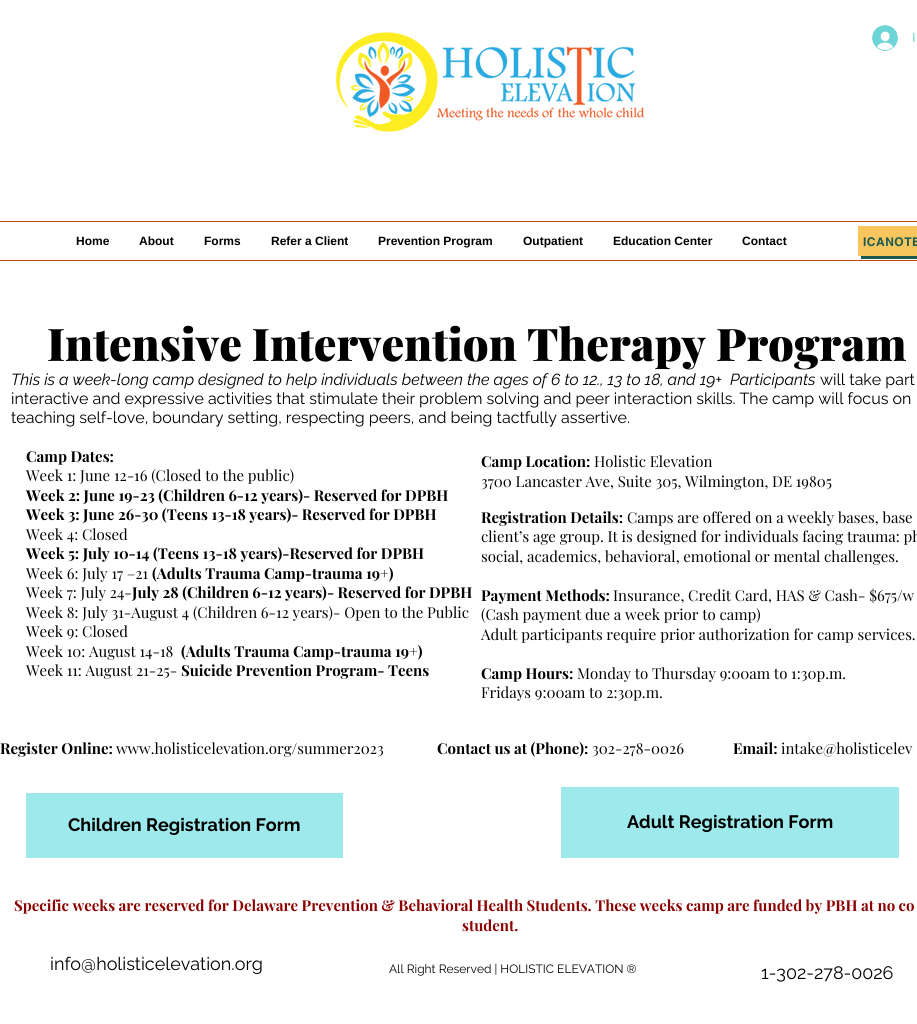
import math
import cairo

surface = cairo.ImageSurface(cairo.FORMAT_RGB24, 917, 1024)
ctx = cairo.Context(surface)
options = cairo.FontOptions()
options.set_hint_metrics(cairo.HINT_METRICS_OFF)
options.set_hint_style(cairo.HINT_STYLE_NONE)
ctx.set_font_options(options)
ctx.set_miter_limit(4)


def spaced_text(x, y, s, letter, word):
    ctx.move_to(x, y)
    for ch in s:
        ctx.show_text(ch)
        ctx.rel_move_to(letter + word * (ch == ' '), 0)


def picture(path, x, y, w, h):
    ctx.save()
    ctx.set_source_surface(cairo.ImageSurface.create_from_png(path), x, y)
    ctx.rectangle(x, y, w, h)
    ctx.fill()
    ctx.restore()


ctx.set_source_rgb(1, 1, 1)
ctx.paint()
picture("img1.png", 335, 32, 309, 100)
picture("img2.png", 872, 25, 26, 26)
ctx.select_font_face("Liberation Sans")
ctx.set_font_size(13)
ctx.set_source_rgb(0.431, 0.835, 0.843)
ctx.move_to(912, 42)
ctx.show_text("I")
ctx.set_source_rgb(0.765, 0.278, 0.086)
ctx.rectangle(0, 221, 917, 1)
ctx.fill()
ctx.rectangle(0, 260, 917, 1)
ctx.fill()
ctx.select_font_face("Liberation Sans", cairo.FONT_SLANT_NORMAL, cairo.FONT_WEIGHT_BOLD)
ctx.set_font_size(12)
ctx.set_source_rgb(0, 0, 0)
ctx.move_to(76, 245)
ctx.show_text("Home")
ctx.move_to(139, 245)
ctx.show_text("About")
ctx.move_to(204, 245)
ctx.show_text("Forms")
ctx.move_to(271, 245)
ctx.show_text("Refer a Client")
ctx.move_to(378, 245)
ctx.show_text("Prevention Program")
ctx.move_to(523, 245)
ctx.show_text("Outpatient")
ctx.move_to(613, 245)
ctx.show_text("Education Center")
ctx.move_to(742, 245)
ctx.show_text("Contact")
ctx.set_source_rgb(0.098, 0.357, 0.322)
ctx.new_path()
ctx.move_to(861, 256)
ctx.line_to(861, 259)
ctx.line_to(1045, 259)
ctx.line_to(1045, 229)
ctx.line_to(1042, 229)
ctx.line_to(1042, 256)
ctx.close_path()
ctx.fill()
ctx.set_source_rgb(0.976, 0.776, 0.365)
ctx.rectangle(858, 226, 59, 30)
ctx.fill()
ctx.select_font_face("helvetica", cairo.FONT_SLANT_NORMAL, cairo.FONT_WEIGHT_BOLD)
ctx.set_source_rgb(0.098, 0.357, 0.322)
spaced_text(863, 246, "ICANOTE", 0.5, 0)
ctx.select_font_face("Playfair Display Black")
ctx.set_font_size(45)
ctx.set_source_rgb(0, 0, 0)
ctx.move_to(47, 361)
ctx.show_text("Intensive Intervention Therapy Program")
ctx.select_font_face("Raleway", cairo.FONT_SLANT_ITALIC)
ctx.set_font_size(16)
ctx.move_to(11, 385)
ctx.show_text("This is a week-long camp designed to help individuals between the ages of 6 to 12., 13 to 18, and 19+  Participants")
ctx.select_font_face("Raleway")
ctx.move_to(820, 385)
ctx.show_text("will take part")
ctx.move_to(11, 404)
ctx.show_text("interactive and expressive activities that stimulate their problem solving and peer interaction skills. The camp will focus on")
ctx.move_to(11, 423)
ctx.show_text("teaching self-love, boundary setting, respecting peers, and being tactfully assertive.")
ctx.select_font_face("Playfair Display", cairo.FONT_SLANT_NORMAL, cairo.FONT_WEIGHT_BOLD)
ctx.set_font_size(15)
ctx.move_to(26, 462)
ctx.show_text("Camp Dates:")
ctx.select_font_face("Playfair Display")
ctx.move_to(26, 481)
ctx.show_text("Week 1: June 12-16 (Closed to the public)")
ctx.select_font_face("Playfair Display", cairo.FONT_SLANT_NORMAL, cairo.FONT_WEIGHT_BOLD)
ctx.move_to(26, 501)
ctx.show_text("Week 2: June 19-23 (Children 6-12 years)- Reserved for DPBH")
ctx.move_to(26, 520)
ctx.show_text("Week 3: June 26-30 (Teens 13-18 years)- Reserved for DPBH")
ctx.select_font_face("Playfair Display")
ctx.move_to(26, 540)
ctx.show_text("Week 4: Closed")
ctx.select_font_face("Playfair Display", cairo.FONT_SLANT_NORMAL, cairo.FONT_WEIGHT_BOLD)
ctx.move_to(26, 559)
ctx.show_text("Week 5: July 10-14 (Teens 13-18 years)-Reserved for DPBH")
ctx.select_font_face("Playfair Display")
ctx.move_to(26, 579)
ctx.show_text("Week 6: July 17 –21")
ctx.select_font_face("Playfair Display", cairo.FONT_SLANT_NORMAL, cairo.FONT_WEIGHT_BOLD)
ctx.move_to(152, 579)
ctx.show_text("(Adults Trauma Camp-trauma 19+)")
ctx.select_font_face("Playfair Display")
ctx.move_to(26, 598)
ctx.show_text("Week 7: July 24-")
ctx.select_font_face("Playfair Display", cairo.FONT_SLANT_NORMAL, cairo.FONT_WEIGHT_BOLD)
ctx.move_to(132, 598)
ctx.show_text("July 28 (Children 6-12 years)- Reserved for DPBH")
ctx.select_font_face("Playfair Display")
ctx.move_to(26, 618)
ctx.show_text("Week 8: July 31-August 4 (Children 6-12 years)- Open to the Public")
ctx.move_to(26, 637)
ctx.show_text("Week 9: Closed")
ctx.move_to(26, 657)
ctx.show_text("Week 10: August 14-18")
ctx.select_font_face("Playfair Display", cairo.FONT_SLANT_NORMAL, cairo.FONT_WEIGHT_BOLD)
ctx.move_to(181, 657)
ctx.show_text("(Adults Trauma Camp-trauma 19+)")
ctx.select_font_face("Playfair Display")
ctx.move_to(26, 676)
ctx.show_text("Week 11: August 21-25-")
ctx.select_font_face("Playfair Display", cairo.FONT_SLANT_NORMAL, cairo.FONT_WEIGHT_BOLD)
ctx.move_to(181, 676)
ctx.show_text("Suicide Prevention Program- Teens")
ctx.move_to(481, 467)
ctx.show_text("Camp Location:")
ctx.select_font_face("Playfair Display")
ctx.move_to(594, 467)
ctx.show_text("Holistic Elevation")
ctx.move_to(481, 487)
ctx.show_text("3700 Lancaster Ave, Suite 305, Wilmington, DE 19805")
ctx.select_font_face("Playfair Display", cairo.FONT_SLANT_NORMAL, cairo.FONT_WEIGHT_BOLD)
ctx.move_to(481, 523)
ctx.show_text("Registration Details:")
ctx.select_font_face("Playfair Display")
ctx.move_to(627, 523)
ctx.show_text("Camps are offered on a weekly bases, base")
ctx.move_to(481, 542)
ctx.show_text("client’s age group. It is designed for individuals facing trauma: ph")
ctx.move_to(481, 562)
ctx.show_text("social, academics, behavioral, emotional or mental challenges.")
ctx.select_font_face("Playfair Display", cairo.FONT_SLANT_NORMAL, cairo.FONT_WEIGHT_BOLD)
ctx.move_to(481, 601)
ctx.show_text("Payment Methods:")
ctx.select_font_face("Playfair Display")
ctx.move_to(613, 601)
ctx.show_text("Insurance, Credit Card, HAS & Cash- $675/w")
ctx.move_to(481, 620)
ctx.show_text("(Cash payment due a week prior to camp)")
ctx.move_to(481, 640)
ctx.show_text("Adult participants require prior authorization for camp services.")
ctx.select_font_face("Playfair Display", cairo.FONT_SLANT_NORMAL, cairo.FONT_WEIGHT_BOLD)
ctx.move_to(481, 679)
ctx.show_text("Camp Hours:")
ctx.select_font_face("Playfair Display")
ctx.move_to(577, 679)
ctx.show_text("Monday to Thursday 9:00am to 1:30p.m.")
ctx.move_to(481, 698)
ctx.show_text("Fridays 9:00am to 2:30p.m.")
ctx.select_font_face("Playfair Display", cairo.FONT_SLANT_NORMAL, cairo.FONT_WEIGHT_BOLD)
ctx.move_to(0, 754)
ctx.show_text("Register Online:")
ctx.select_font_face("Playfair Display")
ctx.move_to(116, 754)
ctx.show_text("www.holisticelevation.org/summer2023")
ctx.select_font_face("Playfair Display", cairo.FONT_SLANT_NORMAL, cairo.FONT_WEIGHT_BOLD)
ctx.move_to(437, 754)
ctx.show_text("Contact us at (Phone):")
ctx.select_font_face("Playfair Display")
ctx.move_to(592, 754)
ctx.show_text("302-278-0026")
ctx.select_font_face("Playfair Display", cairo.FONT_SLANT_NORMAL, cairo.FONT_WEIGHT_BOLD)
ctx.move_to(733, 754)
ctx.show_text("Email:")
ctx.select_font_face("Playfair Display")
ctx.move_to(781, 754)
ctx.show_text("intake@holisticelev")
ctx.set_source_rgb(0.616, 0.914, 0.918)
ctx.rectangle(26, 793, 317, 65)
ctx.fill()
ctx.select_font_face("Raleway", cairo.FONT_SLANT_NORMAL, cairo.FONT_WEIGHT_BOLD)
ctx.set_font_size(18)
ctx.set_source_rgb(0, 0, 0)
ctx.move_to(68, 831)
ctx.show_text("Children Registration Form")
ctx.set_source_rgb(0.616, 0.914, 0.918)
ctx.rectangle(561, 787, 338, 71)
ctx.fill()
ctx.set_source_rgb(0, 0, 0)
ctx.move_to(627, 828)
ctx.show_text("Adult Registration Form")
ctx.select_font_face("Playfair Display", cairo.FONT_SLANT_NORMAL, cairo.FONT_WEIGHT_BOLD)
ctx.set_font_size(15)
ctx.set_source_rgb(0.545, 0, 0)
ctx.move_to(14, 911)
ctx.show_text("Specific weeks are reserved for Delaware Prevention & Behavioral Health Students. These weeks camp are funded by PBH at no co")
ctx.move_to(462, 931)
ctx.show_text("student.")
ctx.select_font_face("Raleway")
ctx.set_font_size(18)
ctx.set_source_rgb(0, 0, 0)
ctx.move_to(50, 970)
ctx.show_text("info@holisticelevation.org")
ctx.set_font_size(12)
ctx.move_to(389, 973)
ctx.show_text("All Right Reserved | HOLISTIC ELEVATION ®")
ctx.set_font_size(18)
ctx.move_to(761, 979)
ctx.show_text("1-302-278-0026")
surface.write_to_png("page.png")
